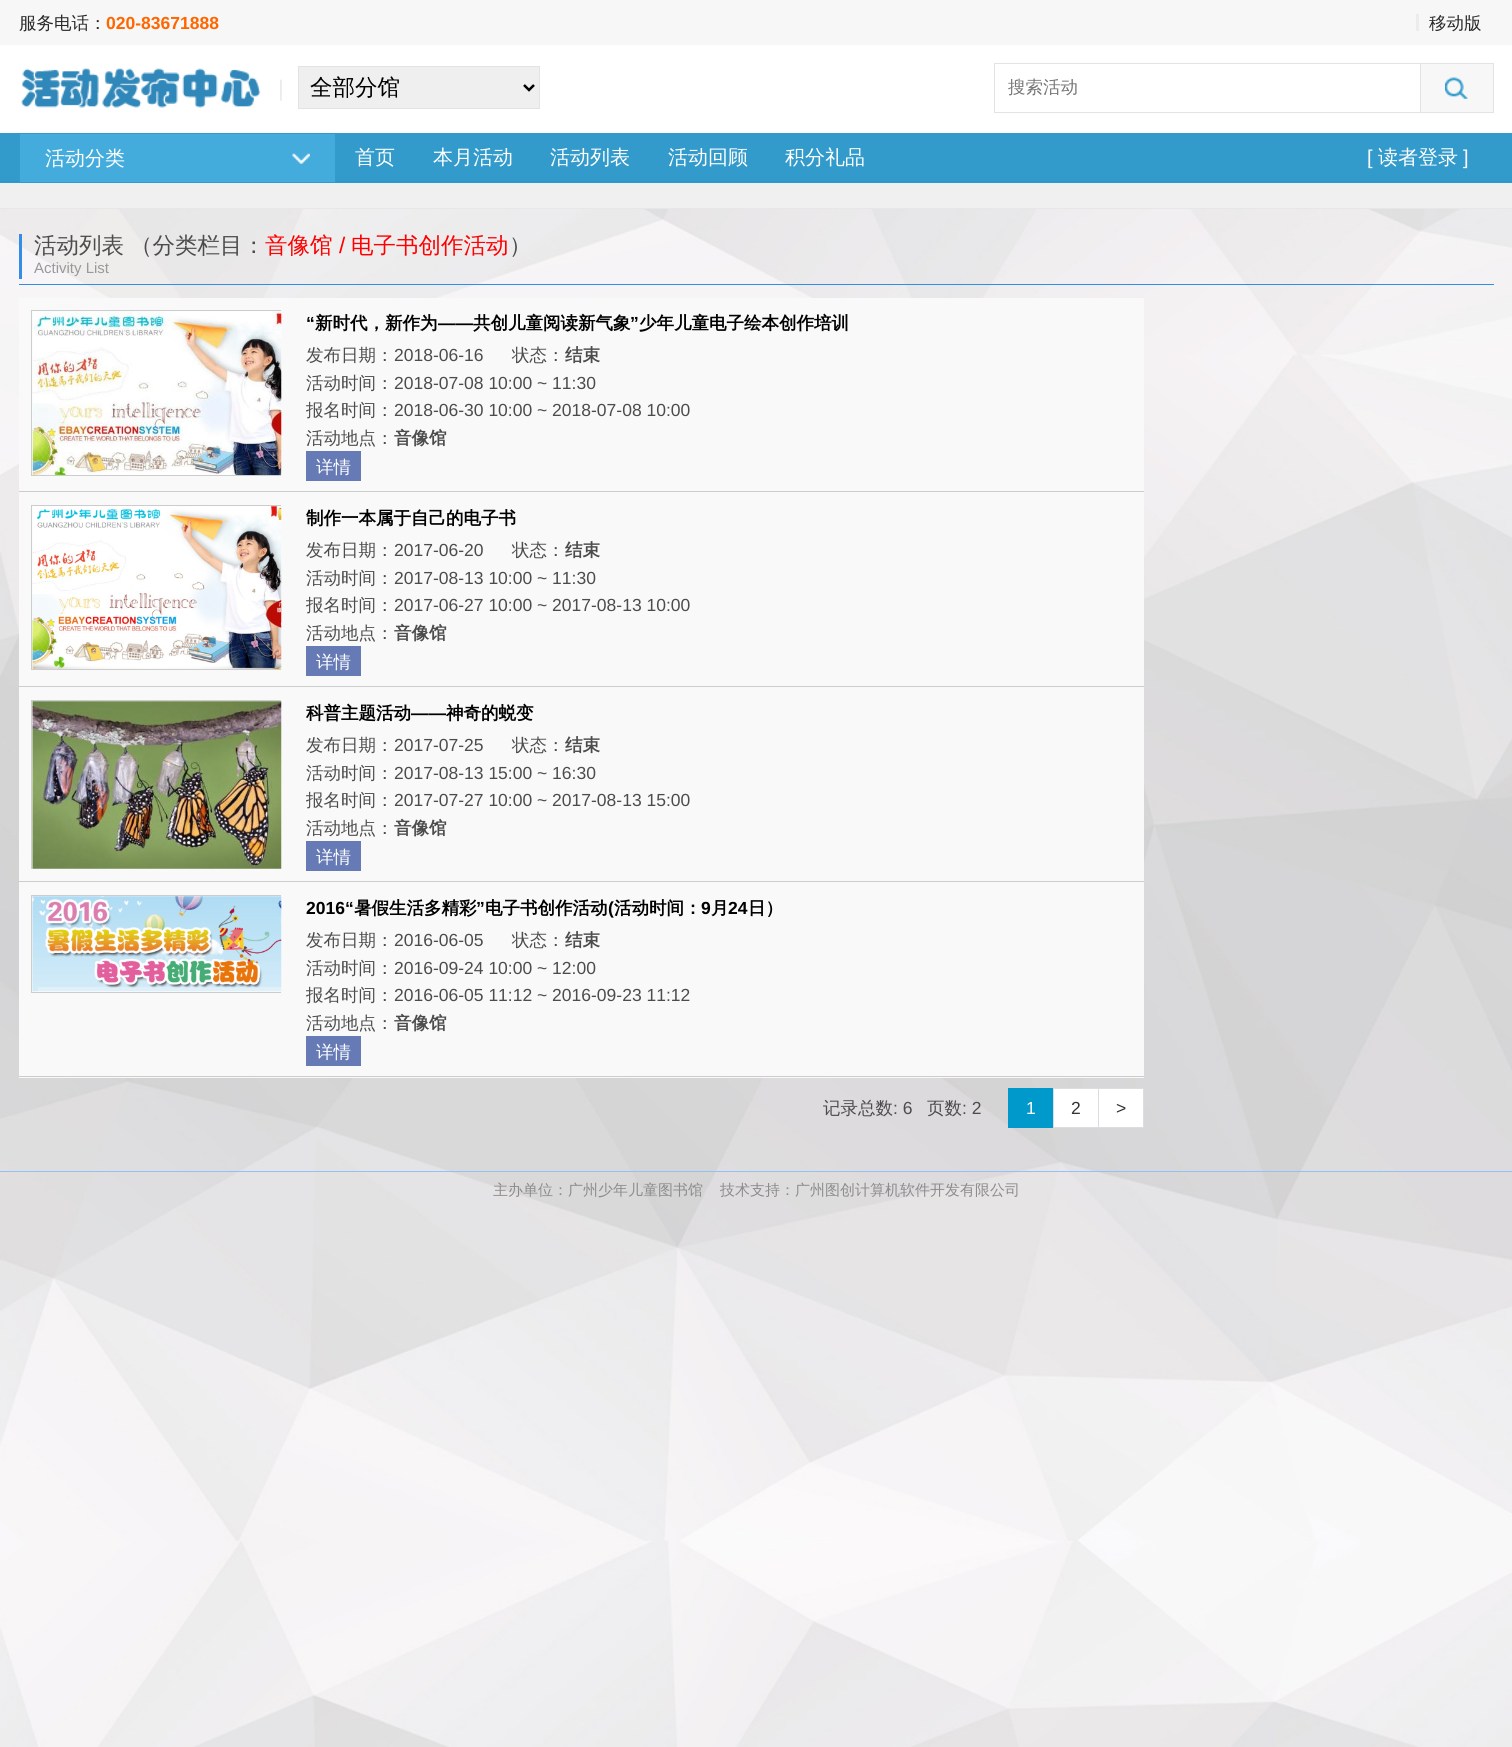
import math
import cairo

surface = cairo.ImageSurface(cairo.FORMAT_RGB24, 1512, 1747)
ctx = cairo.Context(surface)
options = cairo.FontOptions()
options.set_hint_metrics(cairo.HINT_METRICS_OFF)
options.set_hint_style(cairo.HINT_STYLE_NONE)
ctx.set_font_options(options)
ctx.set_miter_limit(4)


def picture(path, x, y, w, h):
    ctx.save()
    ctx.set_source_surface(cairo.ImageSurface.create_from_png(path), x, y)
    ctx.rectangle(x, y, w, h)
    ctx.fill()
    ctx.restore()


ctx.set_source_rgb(1, 1, 1)
ctx.paint()
picture("img1.png", 0, 209, 1512, 1538)
ctx.set_source_rgb(0.965, 0.965, 0.965)
ctx.rectangle(0, 0, 1512, 45)
ctx.fill()
ctx.select_font_face("WenQuanYi Zen Hei Medium")
ctx.set_font_size(17.5)
ctx.set_source_rgb(0.157, 0.157, 0.157)
ctx.move_to(19, 29)
ctx.show_text("服务电话：")
ctx.select_font_face("Liberation Sans", cairo.FONT_SLANT_NORMAL, cairo.FONT_WEIGHT_BOLD)
ctx.set_source_rgb(1, 0.4, 0)
ctx.move_to(106, 29)
ctx.show_text("020-83671888")
ctx.set_source_rgb(0.922, 0.922, 0.922)
ctx.rectangle(1416, 14, 3, 17)
ctx.fill()
ctx.select_font_face("WenQuanYi Zen Hei Medium")
ctx.set_source_rgb(0.157, 0.157, 0.157)
ctx.move_to(1429, 29)
ctx.show_text("移动版")
picture("img2.png", 21, 68, 240, 40)
ctx.select_font_face("Liberation Sans")
ctx.set_font_size(22.5)
ctx.set_source_rgb(0.922, 0.922, 0.922)
ctx.move_to(278, 96)
ctx.show_text("|")
ctx.set_source_rgb(0.937, 0.937, 0.937)
ctx.rectangle(298.5, 66.5, 241, 42)
ctx.fill_preserve()
ctx.set_source_rgb(0.89, 0.89, 0.89)
ctx.set_line_width(1)
ctx.stroke()
ctx.new_path()
ctx.move_to(524, 85)
ctx.line_to(529, 90)
ctx.line_to(534, 85)
ctx.set_source_rgb(0, 0, 0)
ctx.set_line_width(2.5)
ctx.stroke()
ctx.select_font_face("WenQuanYi Zen Hei Medium")
ctx.move_to(310, 95)
ctx.show_text("全部分馆")
ctx.rectangle(994.5, 63.5, 499, 49)
ctx.set_source_rgb(0.89, 0.89, 0.89)
ctx.set_line_width(1)
ctx.stroke()
ctx.set_font_size(17.5)
ctx.set_source_rgb(0.459, 0.459, 0.459)
ctx.move_to(1008, 93)
ctx.show_text("搜索活动")
ctx.set_source_rgb(0.965, 0.965, 0.965)
ctx.rectangle(1420.5, 63.5, 73, 49)
ctx.fill_preserve()
ctx.set_source_rgb(0.89, 0.89, 0.89)
ctx.stroke()
picture("img3.png", 1445, 77, 23, 22)
ctx.set_source_rgb(0.196, 0.608, 0.796)
ctx.rectangle(0, 133, 1512, 50)
ctx.fill()
ctx.set_source_rgb(0.169, 0.588, 0.776)
ctx.rectangle(0, 181, 1512, 1)
ctx.fill()
ctx.set_source_rgb(0.267, 0.675, 0.863)
ctx.rectangle(19.5, 133.5, 316, 49)
ctx.fill_preserve()
ctx.set_source_rgb(0.196, 0.608, 0.796)
ctx.stroke()
ctx.set_font_size(20)
ctx.set_source_rgb(1, 1, 1)
ctx.move_to(45, 165)
ctx.show_text("活动分类")
picture("img4.png", 292, 153, 18, 11)
ctx.move_to(355, 164)
ctx.show_text("首页")
ctx.move_to(433, 164)
ctx.show_text("本月活动")
ctx.move_to(550, 164)
ctx.show_text("活动列表")
ctx.move_to(668, 164)
ctx.show_text("活动回顾")
ctx.move_to(785, 164)
ctx.show_text("积分礼品")
ctx.select_font_face("Liberation Sans")
ctx.move_to(1367, 164)
ctx.show_text("[")
ctx.select_font_face("WenQuanYi Zen Hei Medium")
ctx.move_to(1378, 164)
ctx.show_text("读者登录")
ctx.select_font_face("Liberation Sans")
ctx.move_to(1463, 164)
ctx.show_text("]")
ctx.set_source_rgb(0.941, 0.941, 0.941)
ctx.rectangle(0, 183, 1512, 25)
ctx.fill()
ctx.set_source_rgb(0.91, 0.906, 0.906)
ctx.rectangle(0, 208, 1512, 1)
ctx.fill()
ctx.set_source_rgb(0.2, 0.553, 0.902)
ctx.rectangle(19, 284, 1475, 1)
ctx.fill()
ctx.rectangle(19, 234, 3, 45)
ctx.fill()
ctx.select_font_face("WenQuanYi Zen Hei Medium")
ctx.set_font_size(22.5)
ctx.set_source_rgb(0.298, 0.298, 0.298)
ctx.move_to(34, 253)
ctx.show_text("活动列表")
ctx.move_to(130, 253)
ctx.show_text("（分类栏目：")
ctx.set_source_rgb(1, 0, 0)
ctx.move_to(265, 253)
ctx.show_text("音像馆")
ctx.select_font_face("Liberation Sans")
ctx.move_to(339, 253)
ctx.show_text("/")
ctx.select_font_face("WenQuanYi Zen Hei Medium")
ctx.move_to(351, 253)
ctx.show_text("电子书创作活动")
ctx.set_source_rgb(0.298, 0.298, 0.298)
ctx.move_to(509, 253)
ctx.show_text("）")
ctx.select_font_face("Liberation Sans")
ctx.set_font_size(15)
ctx.set_source_rgb(0.6, 0.6, 0.6)
ctx.move_to(34, 273)
ctx.show_text("Activity List")
ctx.set_source_rgb(0.976, 0.976, 0.976)
ctx.rectangle(19, 298, 1125, 780)
ctx.fill()
ctx.set_source_rgb(0.8, 0.8, 0.8)
ctx.rectangle(19, 491, 1125, 1)
ctx.fill()
ctx.save()
ctx.rectangle(31, 310, 250, 169)
ctx.clip()
ctx.rectangle(31.5, 310.5, 252, 165)
ctx.stroke()
ctx.restore()
picture("img5.png", 32, 311, 250, 164)
ctx.select_font_face("Liberation Sans", cairo.FONT_SLANT_NORMAL, cairo.FONT_WEIGHT_BOLD)
ctx.set_font_size(17.5)
ctx.set_source_rgb(0, 0, 0)
ctx.move_to(306, 329)
ctx.show_text("“")
ctx.select_font_face("WenQuanYi Zen Hei", cairo.FONT_SLANT_NORMAL, cairo.FONT_WEIGHT_BOLD)
ctx.move_to(315, 329)
ctx.show_text("新时代，新作为")
ctx.select_font_face("Liberation Sans", cairo.FONT_SLANT_NORMAL, cairo.FONT_WEIGHT_BOLD)
ctx.move_to(438, 329)
ctx.show_text("——")
ctx.select_font_face("WenQuanYi Zen Hei", cairo.FONT_SLANT_NORMAL, cairo.FONT_WEIGHT_BOLD)
ctx.move_to(473, 329)
ctx.show_text("共创儿童阅读新气象")
ctx.select_font_face("Liberation Sans", cairo.FONT_SLANT_NORMAL, cairo.FONT_WEIGHT_BOLD)
ctx.move_to(630, 329)
ctx.show_text("”")
ctx.select_font_face("WenQuanYi Zen Hei", cairo.FONT_SLANT_NORMAL, cairo.FONT_WEIGHT_BOLD)
ctx.move_to(639, 329)
ctx.show_text("少年儿童电子绘本创作培训")
ctx.select_font_face("WenQuanYi Zen Hei Medium")
ctx.set_source_rgb(0.298, 0.298, 0.298)
ctx.move_to(306, 361)
ctx.show_text("发布日期：")
ctx.select_font_face("Liberation Sans")
ctx.move_to(394, 361)
ctx.show_text("2018-06-16")
ctx.select_font_face("WenQuanYi Zen Hei Medium")
ctx.move_to(512, 361)
ctx.show_text("状态：")
ctx.select_font_face("WenQuanYi Zen Hei", cairo.FONT_SLANT_NORMAL, cairo.FONT_WEIGHT_BOLD)
ctx.move_to(565, 361)
ctx.show_text("结束")
ctx.select_font_face("WenQuanYi Zen Hei Medium")
ctx.move_to(306, 389)
ctx.show_text("活动时间：")
ctx.select_font_face("Liberation Sans")
ctx.move_to(394, 389)
ctx.show_text("2018-07-08 10:00 ~ 11:30")
ctx.select_font_face("WenQuanYi Zen Hei Medium")
ctx.move_to(306, 416)
ctx.show_text("报名时间：")
ctx.select_font_face("Liberation Sans")
ctx.move_to(394, 416)
ctx.show_text("2018-06-30 10:00 ~ 2018-07-08 10:00")
ctx.select_font_face("WenQuanYi Zen Hei Medium")
ctx.move_to(306, 444)
ctx.show_text("活动地点：")
ctx.select_font_face("WenQuanYi Zen Hei", cairo.FONT_SLANT_NORMAL, cairo.FONT_WEIGHT_BOLD)
ctx.move_to(394, 444)
ctx.show_text("音像馆")
ctx.set_source_rgb(0.4, 0.478, 0.71)
ctx.rectangle(306, 451, 55, 30)
ctx.fill()
ctx.select_font_face("WenQuanYi Zen Hei Medium")
ctx.set_source_rgb(1, 1, 1)
ctx.move_to(316, 473)
ctx.show_text("详情")
ctx.set_source_rgb(0.8, 0.8, 0.8)
ctx.rectangle(19, 686, 1125, 1)
ctx.fill()
ctx.save()
ctx.rectangle(31, 505, 250, 169)
ctx.clip()
ctx.rectangle(31.5, 505.5, 252, 164)
ctx.stroke()
ctx.restore()
picture("img6.png", 32, 506, 250, 163)
ctx.select_font_face("WenQuanYi Zen Hei", cairo.FONT_SLANT_NORMAL, cairo.FONT_WEIGHT_BOLD)
ctx.set_source_rgb(0, 0, 0)
ctx.move_to(306, 524)
ctx.show_text("制作一本属于自己的电子书")
ctx.select_font_face("WenQuanYi Zen Hei Medium")
ctx.set_source_rgb(0.298, 0.298, 0.298)
ctx.move_to(306, 556)
ctx.show_text("发布日期：")
ctx.select_font_face("Liberation Sans")
ctx.move_to(394, 556)
ctx.show_text("2017-06-20")
ctx.select_font_face("WenQuanYi Zen Hei Medium")
ctx.move_to(512, 556)
ctx.show_text("状态：")
ctx.select_font_face("WenQuanYi Zen Hei", cairo.FONT_SLANT_NORMAL, cairo.FONT_WEIGHT_BOLD)
ctx.move_to(565, 556)
ctx.show_text("结束")
ctx.select_font_face("WenQuanYi Zen Hei Medium")
ctx.move_to(306, 584)
ctx.show_text("活动时间：")
ctx.select_font_face("Liberation Sans")
ctx.move_to(394, 584)
ctx.show_text("2017-08-13 10:00 ~ 11:30")
ctx.select_font_face("WenQuanYi Zen Hei Medium")
ctx.move_to(306, 611)
ctx.show_text("报名时间：")
ctx.select_font_face("Liberation Sans")
ctx.move_to(394, 611)
ctx.show_text("2017-06-27 10:00 ~ 2017-08-13 10:00")
ctx.select_font_face("WenQuanYi Zen Hei Medium")
ctx.move_to(306, 639)
ctx.show_text("活动地点：")
ctx.select_font_face("WenQuanYi Zen Hei", cairo.FONT_SLANT_NORMAL, cairo.FONT_WEIGHT_BOLD)
ctx.move_to(394, 639)
ctx.show_text("音像馆")
ctx.set_source_rgb(0.4, 0.478, 0.71)
ctx.rectangle(306, 646, 55, 30)
ctx.fill()
ctx.select_font_face("WenQuanYi Zen Hei Medium")
ctx.set_source_rgb(1, 1, 1)
ctx.move_to(316, 668)
ctx.show_text("详情")
ctx.set_source_rgb(0.8, 0.8, 0.8)
ctx.rectangle(19, 881, 1125, 1)
ctx.fill()
ctx.save()
ctx.rectangle(31, 700, 250, 169)
ctx.clip()
ctx.rectangle(31.5, 700.5, 252, 175)
ctx.stroke()
ctx.restore()
picture("img7.png", 32, 701, 250, 168)
ctx.select_font_face("WenQuanYi Zen Hei", cairo.FONT_SLANT_NORMAL, cairo.FONT_WEIGHT_BOLD)
ctx.set_source_rgb(0, 0, 0)
ctx.move_to(306, 719)
ctx.show_text("科普主题活动")
ctx.select_font_face("Liberation Sans", cairo.FONT_SLANT_NORMAL, cairo.FONT_WEIGHT_BOLD)
ctx.move_to(411, 719)
ctx.show_text("——")
ctx.select_font_face("WenQuanYi Zen Hei", cairo.FONT_SLANT_NORMAL, cairo.FONT_WEIGHT_BOLD)
ctx.move_to(446, 719)
ctx.show_text("神奇的蜕变")
ctx.select_font_face("WenQuanYi Zen Hei Medium")
ctx.set_source_rgb(0.298, 0.298, 0.298)
ctx.move_to(306, 751)
ctx.show_text("发布日期：")
ctx.select_font_face("Liberation Sans")
ctx.move_to(394, 751)
ctx.show_text("2017-07-25")
ctx.select_font_face("WenQuanYi Zen Hei Medium")
ctx.move_to(512, 751)
ctx.show_text("状态：")
ctx.select_font_face("WenQuanYi Zen Hei", cairo.FONT_SLANT_NORMAL, cairo.FONT_WEIGHT_BOLD)
ctx.move_to(565, 751)
ctx.show_text("结束")
ctx.select_font_face("WenQuanYi Zen Hei Medium")
ctx.move_to(306, 779)
ctx.show_text("活动时间：")
ctx.select_font_face("Liberation Sans")
ctx.move_to(394, 779)
ctx.show_text("2017-08-13 15:00 ~ 16:30")
ctx.select_font_face("WenQuanYi Zen Hei Medium")
ctx.move_to(306, 806)
ctx.show_text("报名时间：")
ctx.select_font_face("Liberation Sans")
ctx.move_to(394, 806)
ctx.show_text("2017-07-27 10:00 ~ 2017-08-13 15:00")
ctx.select_font_face("WenQuanYi Zen Hei Medium")
ctx.move_to(306, 834)
ctx.show_text("活动地点：")
ctx.select_font_face("WenQuanYi Zen Hei", cairo.FONT_SLANT_NORMAL, cairo.FONT_WEIGHT_BOLD)
ctx.move_to(394, 834)
ctx.show_text("音像馆")
ctx.set_source_rgb(0.4, 0.478, 0.71)
ctx.rectangle(306, 841, 55, 30)
ctx.fill()
ctx.select_font_face("WenQuanYi Zen Hei Medium")
ctx.set_source_rgb(1, 1, 1)
ctx.move_to(316, 863)
ctx.show_text("详情")
ctx.set_source_rgb(0.8, 0.8, 0.8)
ctx.rectangle(19, 1076, 1125, 1)
ctx.fill()
ctx.save()
ctx.rectangle(31, 895, 250, 169)
ctx.clip()
ctx.rectangle(31.5, 895.5, 252, 97)
ctx.stroke()
ctx.restore()
picture("img8.png", 32, 896, 250, 96)
ctx.select_font_face("Liberation Sans", cairo.FONT_SLANT_NORMAL, cairo.FONT_WEIGHT_BOLD)
ctx.set_source_rgb(0, 0, 0)
ctx.move_to(306, 914)
ctx.show_text("2016“")
ctx.select_font_face("WenQuanYi Zen Hei", cairo.FONT_SLANT_NORMAL, cairo.FONT_WEIGHT_BOLD)
ctx.move_to(354, 914)
ctx.show_text("暑假生活多精彩")
ctx.select_font_face("Liberation Sans", cairo.FONT_SLANT_NORMAL, cairo.FONT_WEIGHT_BOLD)
ctx.move_to(476, 914)
ctx.show_text("”")
ctx.select_font_face("WenQuanYi Zen Hei", cairo.FONT_SLANT_NORMAL, cairo.FONT_WEIGHT_BOLD)
ctx.move_to(485, 914)
ctx.show_text("电子书创作活动")
ctx.select_font_face("Liberation Sans", cairo.FONT_SLANT_NORMAL, cairo.FONT_WEIGHT_BOLD)
ctx.move_to(608, 914)
ctx.show_text("(")
ctx.select_font_face("WenQuanYi Zen Hei", cairo.FONT_SLANT_NORMAL, cairo.FONT_WEIGHT_BOLD)
ctx.move_to(614, 914)
ctx.show_text("活动时间：")
ctx.select_font_face("Liberation Sans", cairo.FONT_SLANT_NORMAL, cairo.FONT_WEIGHT_BOLD)
ctx.move_to(701, 914)
ctx.show_text("9")
ctx.select_font_face("WenQuanYi Zen Hei", cairo.FONT_SLANT_NORMAL, cairo.FONT_WEIGHT_BOLD)
ctx.move_to(711, 914)
ctx.show_text("月")
ctx.select_font_face("Liberation Sans", cairo.FONT_SLANT_NORMAL, cairo.FONT_WEIGHT_BOLD)
ctx.move_to(728, 914)
ctx.show_text("24")
ctx.select_font_face("WenQuanYi Zen Hei", cairo.FONT_SLANT_NORMAL, cairo.FONT_WEIGHT_BOLD)
ctx.move_to(748, 914)
ctx.show_text("日）")
ctx.select_font_face("WenQuanYi Zen Hei Medium")
ctx.set_source_rgb(0.298, 0.298, 0.298)
ctx.move_to(306, 946)
ctx.show_text("发布日期：")
ctx.select_font_face("Liberation Sans")
ctx.move_to(394, 946)
ctx.show_text("2016-06-05")
ctx.select_font_face("WenQuanYi Zen Hei Medium")
ctx.move_to(512, 946)
ctx.show_text("状态：")
ctx.select_font_face("WenQuanYi Zen Hei", cairo.FONT_SLANT_NORMAL, cairo.FONT_WEIGHT_BOLD)
ctx.move_to(565, 946)
ctx.show_text("结束")
ctx.select_font_face("WenQuanYi Zen Hei Medium")
ctx.move_to(306, 974)
ctx.show_text("活动时间：")
ctx.select_font_face("Liberation Sans")
ctx.move_to(394, 974)
ctx.show_text("2016-09-24 10:00 ~ 12:00")
ctx.select_font_face("WenQuanYi Zen Hei Medium")
ctx.move_to(306, 1001)
ctx.show_text("报名时间：")
ctx.select_font_face("Liberation Sans")
ctx.move_to(394, 1001)
ctx.show_text("2016-06-05 11:12 ~ 2016-09-23 11:12")
ctx.select_font_face("WenQuanYi Zen Hei Medium")
ctx.move_to(306, 1029)
ctx.show_text("活动地点：")
ctx.select_font_face("WenQuanYi Zen Hei", cairo.FONT_SLANT_NORMAL, cairo.FONT_WEIGHT_BOLD)
ctx.move_to(394, 1029)
ctx.show_text("音像馆")
ctx.set_source_rgb(0.4, 0.478, 0.71)
ctx.rectangle(306, 1036, 55, 30)
ctx.fill()
ctx.select_font_face("WenQuanYi Zen Hei Medium")
ctx.set_source_rgb(1, 1, 1)
ctx.move_to(316, 1058)
ctx.show_text("详情")
ctx.set_source_rgb(0.298, 0.298, 0.298)
ctx.move_to(823, 1114)
ctx.show_text("记录总数")
ctx.select_font_face("Liberation Sans")
ctx.move_to(893, 1114)
ctx.show_text(": 6")
ctx.select_font_face("WenQuanYi Zen Hei Medium")
ctx.move_to(927, 1114)
ctx.show_text("页数")
ctx.select_font_face("Liberation Sans")
ctx.move_to(962, 1114)
ctx.show_text(": 2")
ctx.set_source_rgb(0, 0.6, 0.8)
ctx.rectangle(1008, 1088, 45, 40)
ctx.fill()
ctx.set_source_rgb(1, 1, 1)
ctx.move_to(1026, 1114)
ctx.show_text("1")
ctx.rectangle(1053.5, 1088.5, 45, 39)
ctx.fill_preserve()
ctx.set_source_rgb(0.867, 0.867, 0.867)
ctx.stroke()
ctx.set_source_rgb(0.2, 0.2, 0.2)
ctx.move_to(1071, 1114)
ctx.show_text("2")
ctx.set_source_rgb(1, 1, 1)
ctx.rectangle(1098.5, 1088.5, 45, 39)
ctx.fill_preserve()
ctx.set_source_rgb(0.867, 0.867, 0.867)
ctx.stroke()
ctx.set_source_rgb(0.2, 0.2, 0.2)
ctx.move_to(1116, 1114)
ctx.show_text(">")
ctx.set_source_rgb(0.576, 0.761, 0.949)
ctx.rectangle(0, 1171, 1512, 1)
ctx.fill()
ctx.select_font_face("WenQuanYi Zen Hei Medium")
ctx.set_font_size(15)
ctx.set_source_rgb(0.549, 0.549, 0.549)
ctx.move_to(493, 1195)
ctx.show_text("主办单位：广州少年儿童图书馆")
ctx.move_to(720, 1195)
ctx.show_text("技术支持：广州图创计算机软件开发有限公司")
surface.write_to_png("page.png")
